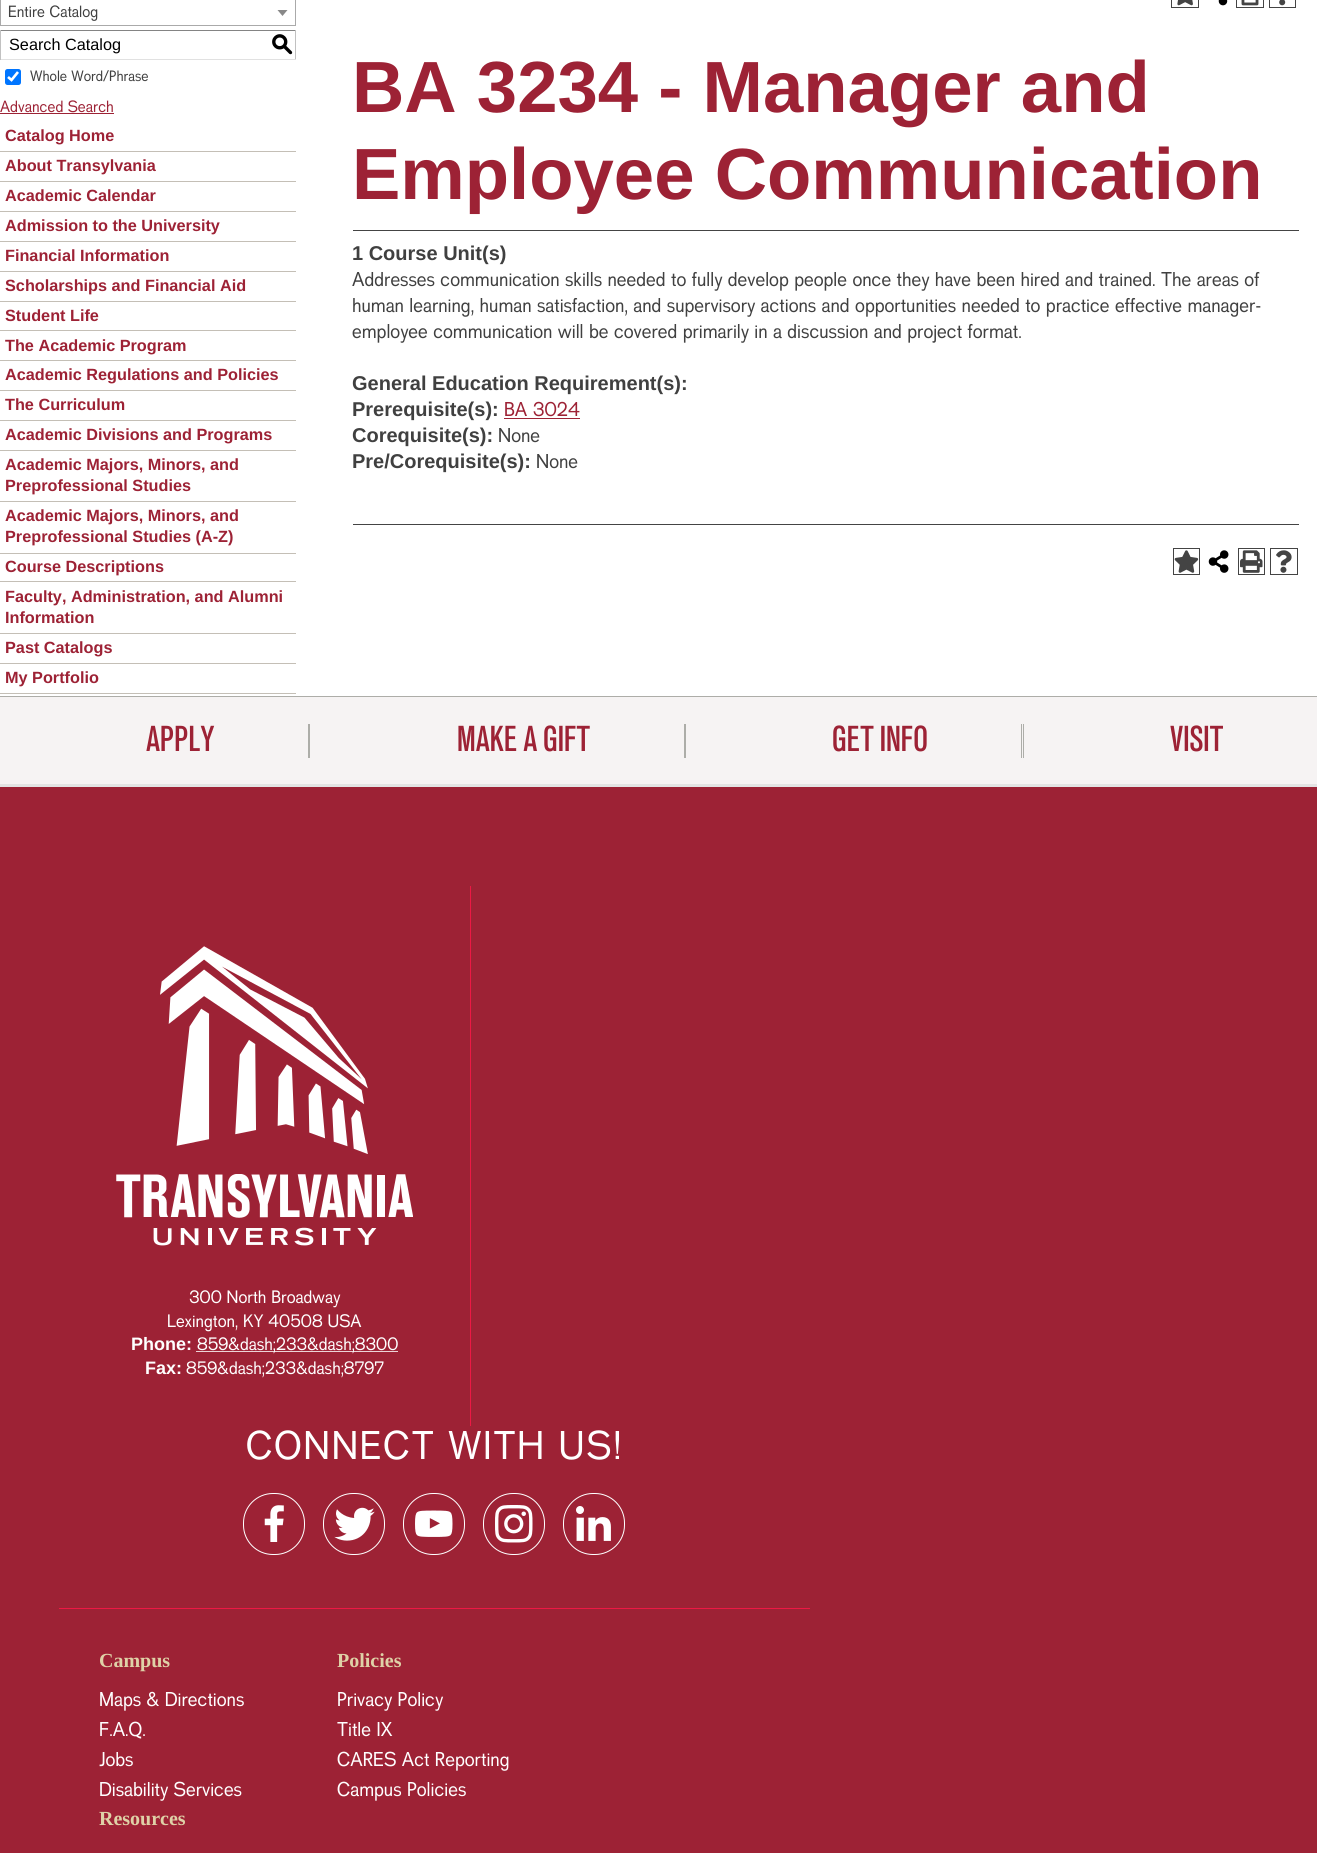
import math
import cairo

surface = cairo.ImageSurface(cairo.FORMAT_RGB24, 1317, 1853)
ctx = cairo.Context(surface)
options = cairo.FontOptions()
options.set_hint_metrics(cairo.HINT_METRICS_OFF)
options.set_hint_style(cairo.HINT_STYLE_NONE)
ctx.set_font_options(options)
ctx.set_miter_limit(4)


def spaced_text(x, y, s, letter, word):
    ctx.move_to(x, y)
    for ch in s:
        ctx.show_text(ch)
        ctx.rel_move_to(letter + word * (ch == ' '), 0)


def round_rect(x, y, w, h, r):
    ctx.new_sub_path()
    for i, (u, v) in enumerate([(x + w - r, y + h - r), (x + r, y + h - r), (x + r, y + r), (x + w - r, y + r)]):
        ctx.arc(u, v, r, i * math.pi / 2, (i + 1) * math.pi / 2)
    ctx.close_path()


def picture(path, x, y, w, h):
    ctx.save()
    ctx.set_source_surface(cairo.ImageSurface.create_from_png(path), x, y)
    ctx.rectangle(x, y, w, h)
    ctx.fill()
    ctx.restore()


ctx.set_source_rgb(1, 1, 1)
ctx.paint()
ctx.rectangle(0.5, -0.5, 295, 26)
ctx.set_source_rgb(0.667, 0.667, 0.667)
ctx.set_line_width(1)
ctx.stroke()
ctx.select_font_face("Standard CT")
ctx.set_font_size(16.25)
ctx.set_source_rgb(0.251, 0.251, 0.251)
ctx.move_to(8, 17)
ctx.show_text("Entire Catalog")
ctx.set_source_rgb(0.533, 0.533, 0.533)
ctx.new_path()
ctx.move_to(277.5, 10)
ctx.line_to(287.5, 10)
ctx.line_to(282.5, 16)
ctx.close_path()
ctx.fill()
ctx.set_source_rgb(0.518, 0.518, 0.518)
ctx.rectangle(0, 30, 296, 1)
ctx.fill()
ctx.set_source_rgb(0.757, 0.757, 0.757)
ctx.rectangle(295, 30, 1, 30)
ctx.fill()
ctx.set_source_rgb(0.882, 0.882, 0.882)
ctx.rectangle(0, 59, 296, 1)
ctx.fill()
ctx.set_source_rgb(0.757, 0.757, 0.757)
ctx.rectangle(0, 30, 1, 30)
ctx.fill()
ctx.select_font_face("Liberation Sans")
ctx.set_source_rgb(0, 0, 0)
ctx.move_to(9, 50)
ctx.show_text("Search Catalog")
ctx.select_font_face("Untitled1 Medium")
ctx.set_font_size(22)
ctx.move_to(271, 51)
ctx.show_text("S")
ctx.set_source_rgb(0, 0.459, 1)
round_rect(5, 69, 16, 16, 2.5)
ctx.fill()
ctx.new_path()
ctx.move_to(8, 77)
ctx.line_to(11.5, 80)
ctx.line_to(18, 72)
ctx.set_source_rgb(1, 1, 1)
ctx.set_line_width(2.6)
ctx.stroke()
ctx.select_font_face("Standard CT")
ctx.set_font_size(15)
ctx.set_source_rgb(0.251, 0.251, 0.251)
ctx.move_to(30, 81)
ctx.show_text("Whole Word/Phrase")
ctx.set_font_size(16.25)
ctx.set_source_rgb(0.616, 0.133, 0.208)
ctx.move_to(0, 112)
ctx.show_text("Advanced Search")
ctx.rectangle(0, 113, 114, 1)
ctx.fill()
ctx.set_source_rgb(0.769, 0.749, 0.714)
ctx.rectangle(0, 151, 296, 1)
ctx.fill()
ctx.select_font_face("Liberation Sans", cairo.FONT_SLANT_NORMAL, cairo.FONT_WEIGHT_BOLD)
ctx.set_source_rgb(0.616, 0.133, 0.208)
ctx.move_to(5, 141)
ctx.show_text("Catalog Home")
ctx.set_source_rgb(0.769, 0.749, 0.714)
ctx.rectangle(0, 181, 296, 1)
ctx.fill()
ctx.set_source_rgb(0.616, 0.133, 0.208)
ctx.move_to(5, 171)
ctx.show_text("About Transylvania")
ctx.set_source_rgb(0.769, 0.749, 0.714)
ctx.rectangle(0, 211, 296, 1)
ctx.fill()
ctx.set_source_rgb(0.616, 0.133, 0.208)
ctx.move_to(5, 201)
ctx.show_text("Academic Calendar")
ctx.set_source_rgb(0.769, 0.749, 0.714)
ctx.rectangle(0, 241, 296, 1)
ctx.fill()
ctx.set_source_rgb(0.616, 0.133, 0.208)
ctx.move_to(5, 231)
ctx.show_text("Admission to the University")
ctx.set_source_rgb(0.769, 0.749, 0.714)
ctx.rectangle(0, 271, 296, 1)
ctx.fill()
ctx.set_source_rgb(0.616, 0.133, 0.208)
ctx.move_to(5, 261)
ctx.show_text("Financial Information")
ctx.set_source_rgb(0.769, 0.749, 0.714)
ctx.rectangle(0, 301, 296, 1)
ctx.fill()
ctx.set_source_rgb(0.616, 0.133, 0.208)
ctx.move_to(5, 291)
ctx.show_text("Scholarships and Financial Aid")
ctx.set_source_rgb(0.769, 0.749, 0.714)
ctx.rectangle(0, 330, 296, 1)
ctx.fill()
ctx.set_source_rgb(0.616, 0.133, 0.208)
ctx.move_to(5, 321)
ctx.show_text("Student Life")
ctx.set_source_rgb(0.769, 0.749, 0.714)
ctx.rectangle(0, 360, 296, 1)
ctx.fill()
ctx.set_source_rgb(0.616, 0.133, 0.208)
ctx.move_to(5, 351)
ctx.show_text("The Academic Program")
ctx.set_source_rgb(0.769, 0.749, 0.714)
ctx.rectangle(0, 390, 296, 1)
ctx.fill()
ctx.set_source_rgb(0.616, 0.133, 0.208)
ctx.move_to(5, 380)
ctx.show_text("Academic Regulations and Policies")
ctx.set_source_rgb(0.769, 0.749, 0.714)
ctx.rectangle(0, 420, 296, 1)
ctx.fill()
ctx.set_source_rgb(0.616, 0.133, 0.208)
ctx.move_to(5, 410)
ctx.show_text("The Curriculum")
ctx.set_source_rgb(0.769, 0.749, 0.714)
ctx.rectangle(0, 450, 296, 1)
ctx.fill()
ctx.set_source_rgb(0.616, 0.133, 0.208)
ctx.move_to(5, 440)
ctx.show_text("Academic Divisions and Programs")
ctx.set_source_rgb(0.769, 0.749, 0.714)
ctx.rectangle(0, 501, 296, 1)
ctx.fill()
ctx.set_source_rgb(0.616, 0.133, 0.208)
ctx.move_to(5, 470)
ctx.show_text("Academic Majors, Minors, and")
ctx.move_to(5, 491)
ctx.show_text("Preprofessional Studies")
ctx.set_source_rgb(0.769, 0.749, 0.714)
ctx.rectangle(0, 553, 296, 1)
ctx.fill()
ctx.set_source_rgb(0.616, 0.133, 0.208)
ctx.move_to(5, 521)
ctx.show_text("Academic Majors, Minors, and")
ctx.move_to(5, 542)
ctx.show_text("Preprofessional Studies (A-Z)")
ctx.set_source_rgb(0.769, 0.749, 0.714)
ctx.rectangle(0, 581, 296, 1)
ctx.fill()
ctx.set_source_rgb(0.616, 0.133, 0.208)
ctx.move_to(5, 572)
ctx.show_text("Course Descriptions")
ctx.set_source_rgb(0.769, 0.749, 0.714)
ctx.rectangle(0, 633, 296, 1)
ctx.fill()
ctx.set_source_rgb(0.616, 0.133, 0.208)
ctx.move_to(5, 602)
ctx.show_text("Faculty, Administration, and Alumni")
ctx.move_to(5, 623)
ctx.show_text("Information")
ctx.set_source_rgb(0.769, 0.749, 0.714)
ctx.rectangle(0, 663, 296, 1)
ctx.fill()
ctx.set_source_rgb(0.616, 0.133, 0.208)
ctx.move_to(5, 653)
ctx.show_text("Past Catalogs")
ctx.set_source_rgb(0.769, 0.749, 0.714)
ctx.rectangle(0, 693, 296, 1)
ctx.fill()
ctx.set_source_rgb(0.616, 0.133, 0.208)
ctx.move_to(5, 683)
ctx.show_text("My Portfolio")
ctx.rectangle(1171.5, -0.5, 27, 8)
ctx.set_source_rgb(0.267, 0.267, 0.267)
ctx.set_line_width(1)
ctx.stroke()
picture("img1.png", 1177, 0, 16, 6)
picture("img2.png", 1218, 0, 10, 6)
ctx.rectangle(1236.5, -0.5, 27, 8)
ctx.stroke()
picture("img3.png", 1241, 0, 18, 6)
ctx.rectangle(1269.5, -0.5, 26, 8)
ctx.stroke()
picture("img4.png", 1279, 0, 7, 6)
ctx.set_font_size(72.5)
ctx.set_source_rgb(0.616, 0.133, 0.208)
ctx.move_to(352, 112)
ctx.show_text("BA 3234 - Manager and")
ctx.move_to(352, 199)
ctx.show_text("Employee Communication")
ctx.set_source_rgb(0.267, 0.267, 0.267)
ctx.rectangle(353, 230, 946, 1)
ctx.fill()
ctx.set_font_size(20)
ctx.set_source_rgb(0.251, 0.251, 0.251)
ctx.move_to(352, 260)
ctx.show_text("1 Course Unit(s)")
ctx.select_font_face("Standard CT")
ctx.move_to(352, 286)
ctx.show_text("Addresses communication skills needed to fully develop people once they have been hired and trained. The areas of")
ctx.move_to(352, 312)
ctx.show_text("human learning, human satisfaction, and supervisory actions and opportunities needed to practice effective manager-")
ctx.move_to(352, 338)
ctx.show_text("employee communication will be covered primarily in a discussion and project format.")
ctx.select_font_face("Liberation Sans", cairo.FONT_SLANT_NORMAL, cairo.FONT_WEIGHT_BOLD)
ctx.move_to(352, 390)
ctx.show_text("General Education Requirement(s):")
ctx.move_to(352, 416)
ctx.show_text("Prerequisite(s):")
ctx.select_font_face("Standard CT")
ctx.set_source_rgb(0.616, 0.133, 0.208)
ctx.move_to(504, 416)
ctx.show_text("BA 3024")
ctx.rectangle(504, 418, 76, 1)
ctx.fill()
ctx.select_font_face("Liberation Sans", cairo.FONT_SLANT_NORMAL, cairo.FONT_WEIGHT_BOLD)
ctx.set_source_rgb(0.251, 0.251, 0.251)
ctx.move_to(352, 442)
ctx.show_text("Corequisite(s):")
ctx.select_font_face("Standard CT")
ctx.move_to(498, 442)
ctx.show_text("None")
ctx.select_font_face("Liberation Sans", cairo.FONT_SLANT_NORMAL, cairo.FONT_WEIGHT_BOLD)
ctx.move_to(352, 468)
ctx.show_text("Pre/Corequisite(s):")
ctx.select_font_face("Standard CT")
ctx.move_to(536, 468)
ctx.show_text("None")
ctx.set_source_rgb(0.267, 0.267, 0.267)
ctx.rectangle(353, 524, 946, 1)
ctx.fill()
ctx.rectangle(1173.5, 548.5, 26, 26)
ctx.stroke()
picture("img5.png", 1174, 550, 25, 23)
picture("img6.png", 1208, 550, 21, 23)
ctx.rectangle(1238.5, 548.5, 26, 26)
ctx.stroke()
picture("img7.png", 1240, 550, 23, 23)
ctx.rectangle(1270.5, 548.5, 27, 26)
ctx.stroke()
picture("img8.png", 1276, 550, 16, 23)
ctx.set_source_rgb(0.961, 0.953, 0.953)
ctx.rectangle(0, 697, 1317, 87)
ctx.fill()
ctx.set_source_rgb(0.678, 0.678, 0.659)
ctx.rectangle(0, 696, 1317, 1)
ctx.fill()
ctx.rectangle(308, 724, 2, 34)
ctx.fill()
ctx.select_font_face("Standard CT Medium")
ctx.set_font_size(36)
ctx.set_source_rgb(0.616, 0.133, 0.208)
ctx.move_to(146, 751)
ctx.show_text("APPLY")
ctx.set_source_rgb(0.678, 0.678, 0.659)
ctx.rectangle(684, 724, 2, 34)
ctx.fill()
ctx.set_source_rgb(0.616, 0.133, 0.208)
ctx.move_to(457, 751)
ctx.show_text("MAKE A GIFT")
ctx.set_source_rgb(0.678, 0.678, 0.659)
ctx.rectangle(1021, 724, 1, 34)
ctx.fill()
ctx.set_source_rgb(0.616, 0.133, 0.208)
ctx.move_to(832, 751)
ctx.show_text("GET INFO")
ctx.set_source_rgb(0.678, 0.678, 0.659)
ctx.rectangle(1023, 724, 1, 34)
ctx.fill()
ctx.set_source_rgb(0.616, 0.133, 0.208)
ctx.move_to(1170, 751)
ctx.show_text("VISIT")
ctx.rectangle(0, 787, 1317, 1066)
ctx.fill()
ctx.set_source_rgb(0.89, 0.89, 0.89)
ctx.rectangle(0, 784, 1317, 3)
ctx.fill()
ctx.set_source_rgb(0.925, 0.098, 0.267)
ctx.rectangle(470, 886, 1, 540)
ctx.fill()
picture("img9.png", 160, 946, 208, 208)
picture("img10.png", 116, 1174, 297, 72)
ctx.select_font_face("Standard CT")
ctx.set_font_size(18)
ctx.set_source_rgb(1, 1, 1)
ctx.move_to(189, 1303)
ctx.show_text("300 North Broadway")
ctx.move_to(167, 1327)
ctx.show_text("Lexington, KY 40508 USA")
ctx.select_font_face("Liberation Sans", cairo.FONT_SLANT_NORMAL, cairo.FONT_WEIGHT_BOLD)
ctx.move_to(131, 1350)
ctx.show_text("Phone:")
ctx.set_source_rgb(0.922, 0.827, 0.843)
ctx.rectangle(196, 1351, 202, 1)
ctx.fill()
ctx.select_font_face("Standard CT")
ctx.set_source_rgb(1, 1, 1)
ctx.move_to(197, 1350)
ctx.show_text("859&dash;233&dash;8300")
ctx.select_font_face("Liberation Sans", cairo.FONT_SLANT_NORMAL, cairo.FONT_WEIGHT_BOLD)
ctx.move_to(145, 1374)
ctx.show_text("Fax:")
ctx.select_font_face("Standard CT")
ctx.move_to(186, 1374)
ctx.show_text("859&dash;233&dash;8797")
ctx.set_source_rgb(0.925, 0.098, 0.267)
ctx.rectangle(59, 1608, 751, 1)
ctx.fill()
ctx.set_font_size(40)
ctx.set_source_rgb(1, 1, 1)
spaced_text(246, 1459, "CONNECT WITH US!", 1.9, 0)
round_rect(243.5, 1493.5, 61, 61, 29.5)
ctx.stroke()
picture("img11.png", 264, 1505, 20, 37)
round_rect(323.5, 1493.5, 61, 61, 29.5)
ctx.stroke()
picture("img12.png", 334, 1507, 41, 34)
round_rect(403.5, 1493.5, 61, 61, 29.5)
ctx.stroke()
picture("img13.png", 415, 1510, 38, 27)
round_rect(483.5, 1493.5, 61, 61, 29.5)
ctx.stroke()
picture("img14.png", 495, 1505, 38, 38)
round_rect(563.5, 1493.5, 61, 61, 29.5)
ctx.stroke()
picture("img15.png", 576, 1506, 35, 35)
ctx.select_font_face("Liberation Serif", cairo.FONT_SLANT_NORMAL, cairo.FONT_WEIGHT_BOLD)
ctx.set_font_size(20)
ctx.set_source_rgb(0.875, 0.82, 0.655)
ctx.move_to(99, 1667)
ctx.show_text("Campus")
ctx.select_font_face("Standard CT")
ctx.set_source_rgb(1, 1, 1)
ctx.move_to(99, 1706)
ctx.show_text("Maps & Directions")
ctx.move_to(99, 1736)
ctx.show_text("F.A.Q.")
ctx.move_to(99, 1766)
ctx.show_text("Jobs")
ctx.move_to(99, 1796)
ctx.show_text("Disability Services")
ctx.select_font_face("Liberation Serif", cairo.FONT_SLANT_NORMAL, cairo.FONT_WEIGHT_BOLD)
ctx.set_source_rgb(0.875, 0.82, 0.655)
ctx.move_to(337, 1667)
ctx.show_text("Policies")
ctx.select_font_face("Standard CT")
ctx.set_source_rgb(1, 1, 1)
ctx.move_to(337, 1706)
ctx.show_text("Privacy Policy")
ctx.move_to(337, 1736)
ctx.show_text("Title IX")
ctx.move_to(337, 1766)
ctx.show_text("CARES Act Reporting")
ctx.move_to(337, 1796)
ctx.show_text("Campus Policies")
ctx.select_font_face("Liberation Serif", cairo.FONT_SLANT_NORMAL, cairo.FONT_WEIGHT_BOLD)
ctx.set_source_rgb(0.875, 0.82, 0.655)
ctx.move_to(99, 1825)
ctx.show_text("Resources")
surface.write_to_png("page.png")
